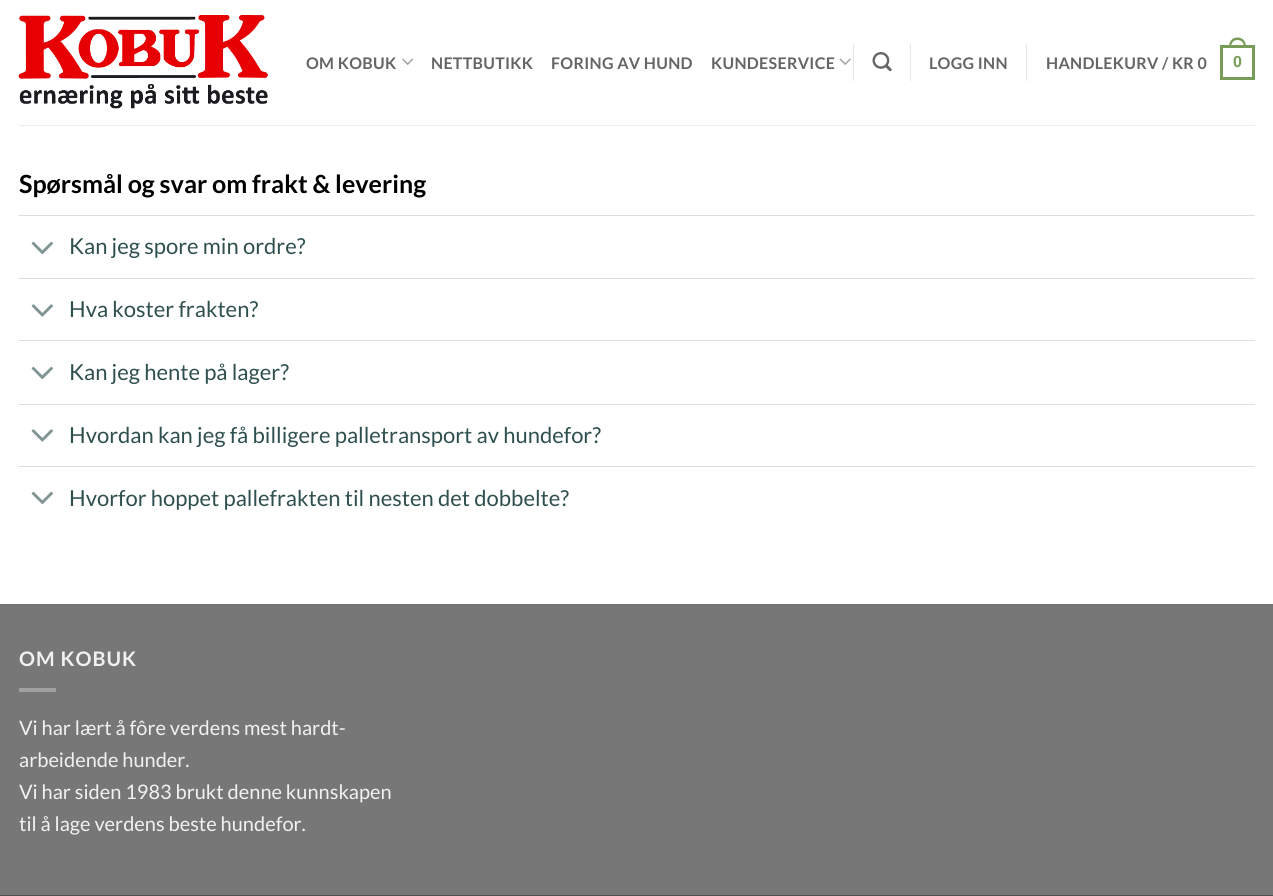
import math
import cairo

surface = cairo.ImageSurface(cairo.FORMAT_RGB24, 1273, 896)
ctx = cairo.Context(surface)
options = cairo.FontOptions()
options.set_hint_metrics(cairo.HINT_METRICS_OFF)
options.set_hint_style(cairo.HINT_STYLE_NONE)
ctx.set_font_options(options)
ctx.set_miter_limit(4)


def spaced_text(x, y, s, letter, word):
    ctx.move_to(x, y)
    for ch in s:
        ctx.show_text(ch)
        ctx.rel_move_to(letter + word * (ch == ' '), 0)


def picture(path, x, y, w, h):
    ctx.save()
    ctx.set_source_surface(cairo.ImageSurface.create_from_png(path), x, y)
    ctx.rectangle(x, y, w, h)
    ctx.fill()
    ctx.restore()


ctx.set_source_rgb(1, 1, 1)
ctx.paint()
picture("img1.png", 18, 15, 250, 94)
ctx.select_font_face("Lato", cairo.FONT_SLANT_NORMAL, cairo.FONT_WEIGHT_BOLD)
ctx.set_font_size(16)
ctx.set_source_rgb(0.396, 0.396, 0.396)
spaced_text(306, 69, "OM KOBUK", 0.3, 0)
picture("img2.png", 402, 58, 12, 7)
spaced_text(431, 69, "NETTBUTIKK", 0.3, 0)
spaced_text(551, 69, "FORING AV HUND", 0.3, 0)
spaced_text(711, 69, "KUNDESERVICE", 0.3, 0)
picture("img3.png", 839, 58, 12, 7)
ctx.set_source_rgb(0.902, 0.902, 0.902)
ctx.rectangle(853, 44, 1, 37)
ctx.fill()
picture("img4.png", 872, 52, 20, 20)
ctx.rectangle(910, 44, 1, 37)
ctx.fill()
ctx.set_source_rgb(0.396, 0.396, 0.396)
spaced_text(929, 69, "LOGG INN", 0.3, 0)
ctx.set_source_rgb(0.902, 0.902, 0.902)
ctx.rectangle(1026, 44, 1, 37)
ctx.fill()
ctx.set_source_rgb(0.396, 0.396, 0.396)
spaced_text(1046, 69, "HANDLEKURV / KR 0", 0.3, 0)
ctx.rectangle(1221.5, 46.5, 32, 32)
ctx.set_source_rgb(0.478, 0.612, 0.349)
ctx.set_line_width(3)
ctx.stroke()
ctx.set_fill_rule(cairo.FILL_RULE_EVEN_ODD)
ctx.new_path()
ctx.move_to(1237.5, 37.5)
ctx.curve_to(1243.5, 37.5, 1246, 42, 1246, 47.5)
ctx.line_to(1229, 47.5)
ctx.curve_to(1229, 42, 1231.5, 37.5, 1237.5, 37.5)
ctx.close_path()
ctx.move_to(1237.5, 40)
ctx.curve_to(1242, 40, 1244, 43.5, 1244, 47.5)
ctx.line_to(1231, 47.5)
ctx.curve_to(1231, 43.5, 1233, 40, 1237.5, 40)
ctx.close_path()
ctx.fill()
ctx.select_font_face("Liberation Sans", cairo.FONT_SLANT_NORMAL, cairo.FONT_WEIGHT_BOLD)
spaced_text(1233, 67, "0", 0.3, 0)
ctx.set_source_rgb(0.918, 0.929, 0.929)
ctx.rectangle(19, 125, 1236, 1)
ctx.fill()
ctx.select_font_face("Lato", cairo.FONT_SLANT_NORMAL, cairo.FONT_WEIGHT_BOLD)
ctx.set_font_size(25)
ctx.set_source_rgb(0, 0, 0)
ctx.move_to(19, 193)
ctx.show_text("Spørsmål og svar om frakt & levering")
ctx.set_source_rgb(0.867, 0.867, 0.867)
ctx.rectangle(19, 215, 1236, 1)
ctx.fill()
picture("img5.png", 31, 241, 22, 14)
ctx.select_font_face("Lato")
ctx.set_font_size(22)
ctx.set_source_rgb(0.184, 0.31, 0.31)
ctx.move_to(69, 254)
ctx.show_text("Kan jeg spore min ordre?")
ctx.set_source_rgb(0.867, 0.867, 0.867)
ctx.rectangle(19, 278, 1236, 1)
ctx.fill()
picture("img6.png", 31, 304, 22, 13)
ctx.set_source_rgb(0.184, 0.31, 0.31)
ctx.move_to(69, 317)
ctx.show_text("Hva koster frakten?")
ctx.set_source_rgb(0.867, 0.867, 0.867)
ctx.rectangle(19, 340, 1236, 1)
ctx.fill()
picture("img5.png", 31, 366, 22, 14)
ctx.set_source_rgb(0.184, 0.31, 0.31)
ctx.move_to(69, 380)
ctx.show_text("Kan jeg hente på lager?")
ctx.set_source_rgb(0.867, 0.867, 0.867)
ctx.rectangle(19, 404, 1236, 1)
ctx.fill()
picture("img6.png", 31, 429, 22, 13)
ctx.set_source_rgb(0.184, 0.31, 0.31)
ctx.move_to(69, 443)
ctx.show_text("Hvordan kan jeg få billigere palletransport av hundefor?")
ctx.set_source_rgb(0.867, 0.867, 0.867)
ctx.rectangle(19, 466, 1236, 1)
ctx.fill()
picture("img5.png", 31, 491, 22, 14)
ctx.set_source_rgb(0.184, 0.31, 0.31)
ctx.move_to(69, 506)
ctx.show_text("Hvorfor hoppet pallefrakten til nesten det dobbelte?")
ctx.set_source_rgb(0.467, 0.467, 0.467)
ctx.rectangle(0, 605, 1273, 290)
ctx.fill()
ctx.set_source_rgb(0.443, 0.443, 0.443)
ctx.rectangle(0, 604, 1273, 1)
ctx.fill()
ctx.select_font_face("Lato", cairo.FONT_SLANT_NORMAL, cairo.FONT_WEIGHT_BOLD)
ctx.set_font_size(20)
ctx.set_source_rgb(0.945, 0.945, 0.945)
spaced_text(19, 666, "OM KOBUK", 1, 0)
ctx.set_source_rgb(0.627, 0.627, 0.627)
ctx.rectangle(19, 688, 37, 4)
ctx.fill()
ctx.select_font_face("Lato")
ctx.set_source_rgb(0.945, 0.945, 0.945)
ctx.move_to(19, 735)
ctx.show_text("Vi har lært å fôre verdens mest hardt-")
ctx.move_to(19, 767)
ctx.show_text("arbeidende hunder.")
ctx.move_to(19, 799)
ctx.show_text("Vi har siden 1983 brukt denne kunnskapen")
ctx.move_to(19, 831)
ctx.show_text("til å lage verdens beste hundefor.")
ctx.set_source_rgb(0.302, 0.302, 0.302)
ctx.rectangle(0, 895, 1273, 1)
ctx.fill()
surface.write_to_png("page.png")
